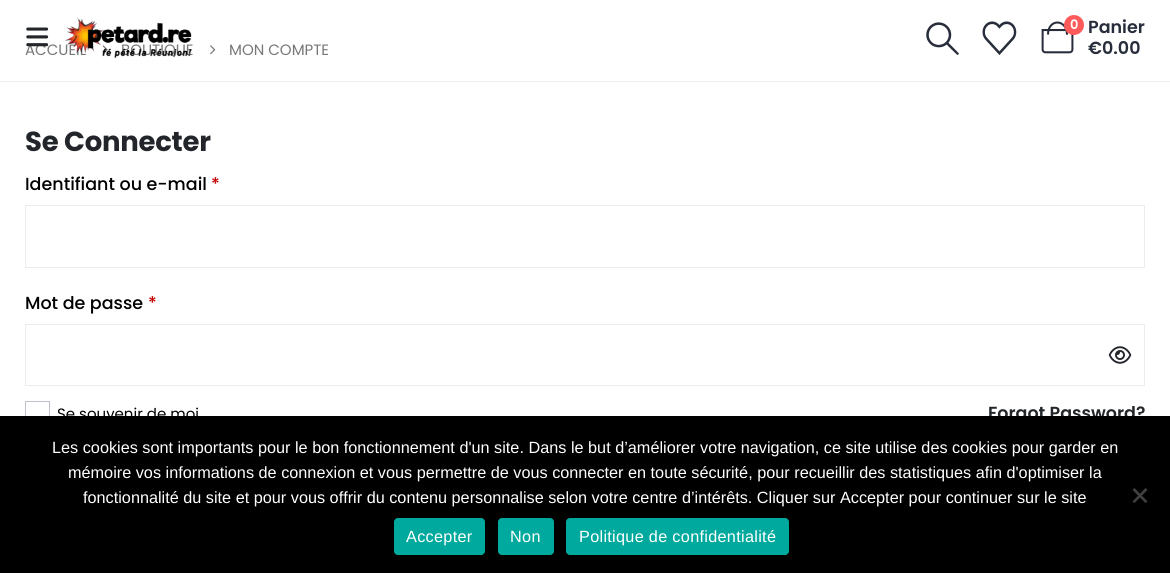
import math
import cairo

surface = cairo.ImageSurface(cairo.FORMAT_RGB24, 1170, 573)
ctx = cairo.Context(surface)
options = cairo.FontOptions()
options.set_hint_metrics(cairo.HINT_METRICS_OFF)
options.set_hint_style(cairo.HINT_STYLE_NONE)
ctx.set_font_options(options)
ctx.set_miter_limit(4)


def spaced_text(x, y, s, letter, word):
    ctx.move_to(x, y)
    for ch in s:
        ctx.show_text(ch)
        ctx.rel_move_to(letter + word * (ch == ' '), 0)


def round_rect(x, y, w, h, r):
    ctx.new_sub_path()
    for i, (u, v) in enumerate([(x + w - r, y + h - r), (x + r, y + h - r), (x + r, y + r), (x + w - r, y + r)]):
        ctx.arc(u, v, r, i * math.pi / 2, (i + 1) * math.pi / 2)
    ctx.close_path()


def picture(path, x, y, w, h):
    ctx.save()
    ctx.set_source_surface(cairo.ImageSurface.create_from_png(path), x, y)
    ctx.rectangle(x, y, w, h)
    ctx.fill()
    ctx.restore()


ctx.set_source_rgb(1, 1, 1)
ctx.paint()
ctx.set_source_rgb(0.933, 0.933, 0.933)
ctx.rectangle(0, 81, 1170, 1)
ctx.fill()
ctx.select_font_face("Poppins")
ctx.set_font_size(15)
ctx.set_source_rgb(0.467, 0.467, 0.467)
ctx.move_to(25, 55)
ctx.show_text("ACCUEIL")
picture("img1.png", 102, 45, 6, 10)
ctx.move_to(121, 55)
ctx.show_text("BOUTIQUE")
picture("img2.png", 210, 45, 6, 10)
ctx.move_to(229, 55)
ctx.show_text("MON COMPTE")
picture("img3.png", 26, 27, 23, 20)
picture("img4.png", 65, 17, 127, 41)
picture("img5.png", 926, 22, 33, 33)
picture("img6.png", 982, 21, 35, 34)
picture("img7.png", 1041, 21, 33, 33)
ctx.set_source_rgb(1, 0.357, 0.357)
ctx.arc(1074, 25, 10, 0, 2 * math.pi)
ctx.fill()
ctx.select_font_face("Poppins SemiBold")
ctx.set_font_size(13)
ctx.set_source_rgb(1, 1, 1)
ctx.move_to(1070, 29)
ctx.show_text("0")
ctx.set_font_size(17.5)
ctx.set_source_rgb(0.157, 0.176, 0.231)
ctx.move_to(1088, 33)
ctx.show_text("Panier")
ctx.move_to(1088, 54)
ctx.show_text("€0.00")
ctx.select_font_face("Poppins", cairo.FONT_SLANT_NORMAL, cairo.FONT_WEIGHT_BOLD)
ctx.set_font_size(27.5)
ctx.set_source_rgb(0.133, 0.145, 0.161)
spaced_text(25, 151, "Se Connecter", -0.25, 0)
ctx.select_font_face("Poppins Medium")
ctx.set_font_size(17.5)
ctx.set_source_rgb(0, 0, 0)
ctx.move_to(25, 190)
ctx.show_text("Identifiant ou e-mail")
ctx.set_source_rgb(0.757, 0, 0)
ctx.move_to(211, 190)
ctx.show_text("*")
ctx.rectangle(25.5, 205.5, 1119, 62)
ctx.set_source_rgb(0.922, 0.922, 0.922)
ctx.set_line_width(1)
ctx.stroke()
ctx.set_source_rgb(0, 0, 0)
ctx.move_to(25, 309)
ctx.show_text("Mot de passe")
ctx.set_source_rgb(0.757, 0, 0)
ctx.move_to(148, 309)
ctx.show_text("*")
ctx.rectangle(25.5, 324.5, 1119, 61)
ctx.set_source_rgb(0.922, 0.922, 0.922)
ctx.stroke()
picture("img8.png", 1108, 346, 24, 18)
ctx.rectangle(25.5, 401.5, 24, 24)
ctx.set_source_rgb(0.761, 0.753, 0.792)
ctx.stroke()
ctx.select_font_face("Poppins")
ctx.set_font_size(15)
ctx.set_source_rgb(0, 0, 0)
ctx.move_to(57, 419)
ctx.show_text("Se souvenir de moi")
ctx.select_font_face("Poppins SemiBold")
ctx.set_font_size(17.5)
ctx.set_source_rgb(0.133, 0.145, 0.161)
ctx.move_to(988, 419)
ctx.show_text("Forgot Password?")
ctx.set_source_rgb(0, 0, 0)
ctx.rectangle(0, 416, 1170, 157)
ctx.fill()
ctx.select_font_face("Liberation Sans")
ctx.set_font_size(16.25)
ctx.set_source_rgb(1, 1, 1)
ctx.move_to(52, 453)
ctx.show_text("Les cookies sont importants pour le bon fonctionnement d'un site. Dans le but d’améliorer votre navigation, ce site utilise des cookies pour garder en")
ctx.move_to(68, 478)
ctx.show_text("mémoire vos informations de connexion et vous permettre de vous connecter en toute sécurité, pour recueillir des statistiques afin d'optimiser la")
ctx.move_to(83, 503)
ctx.show_text("fonctionnalité du site et pour vous offrir du contenu personnalise selon votre centre d’intérêts. Cliquer sur Accepter pour continuer sur le site")
ctx.set_source_rgb(0.251, 0.251, 0.251)
ctx.new_path()
ctx.move_to(1145.5, 488)
ctx.line_to(1147.5, 490)
ctx.line_to(1134.5, 503)
ctx.line_to(1132.5, 501.5)
ctx.close_path()
ctx.fill()
ctx.new_path()
ctx.move_to(1132.5, 490)
ctx.line_to(1134.5, 488)
ctx.line_to(1147.5, 501.5)
ctx.line_to(1145.5, 503)
ctx.close_path()
ctx.fill()
ctx.set_source_rgb(0, 0.663, 0.616)
round_rect(394, 518, 91, 37, 4)
ctx.fill()
ctx.set_source_rgb(1, 1, 1)
spaced_text(406, 542, "Accepter", 0.3, 0)
ctx.set_source_rgb(0, 0.663, 0.616)
round_rect(498, 518, 56, 37, 4)
ctx.fill()
ctx.set_source_rgb(1, 1, 1)
spaced_text(510, 542, "Non", 0.3, 0)
ctx.set_source_rgb(0, 0.663, 0.616)
round_rect(566, 518, 223, 37, 4)
ctx.fill()
ctx.set_source_rgb(1, 1, 1)
spaced_text(579, 542, "Politique de confidentialité", 0.3, 0)
surface.write_to_png("page.png")
